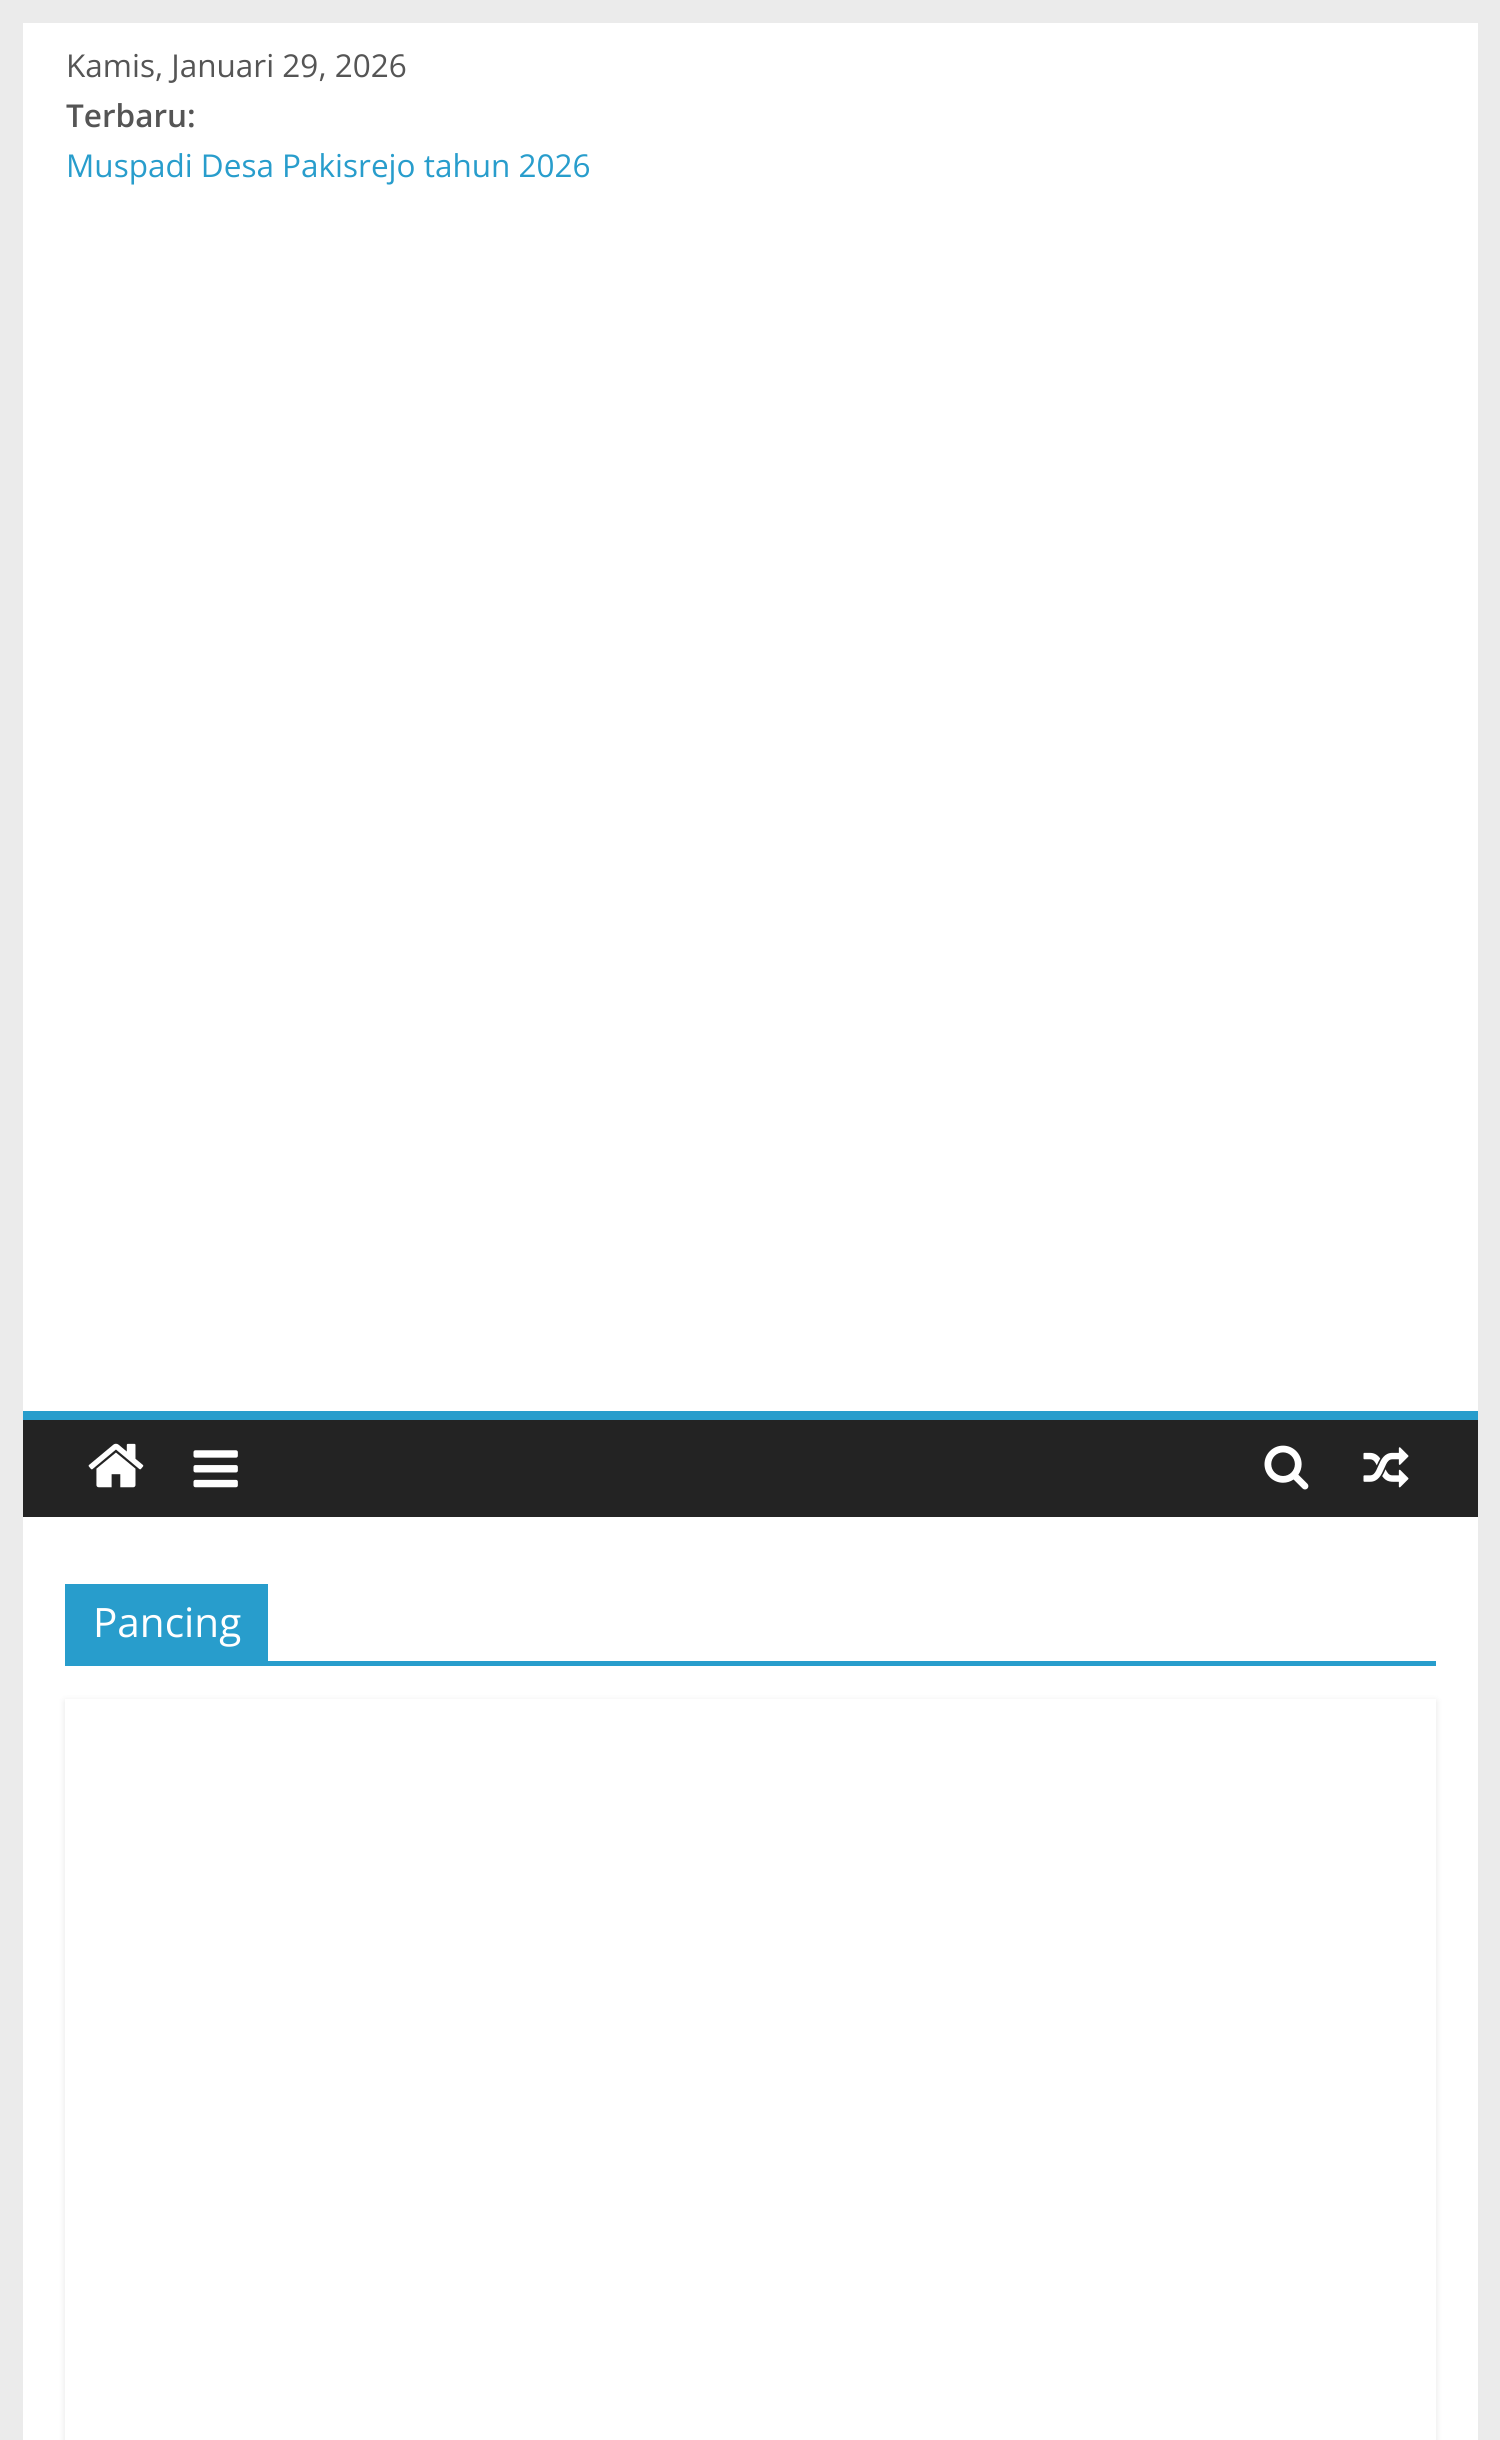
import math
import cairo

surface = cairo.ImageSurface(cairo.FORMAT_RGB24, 1500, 2440)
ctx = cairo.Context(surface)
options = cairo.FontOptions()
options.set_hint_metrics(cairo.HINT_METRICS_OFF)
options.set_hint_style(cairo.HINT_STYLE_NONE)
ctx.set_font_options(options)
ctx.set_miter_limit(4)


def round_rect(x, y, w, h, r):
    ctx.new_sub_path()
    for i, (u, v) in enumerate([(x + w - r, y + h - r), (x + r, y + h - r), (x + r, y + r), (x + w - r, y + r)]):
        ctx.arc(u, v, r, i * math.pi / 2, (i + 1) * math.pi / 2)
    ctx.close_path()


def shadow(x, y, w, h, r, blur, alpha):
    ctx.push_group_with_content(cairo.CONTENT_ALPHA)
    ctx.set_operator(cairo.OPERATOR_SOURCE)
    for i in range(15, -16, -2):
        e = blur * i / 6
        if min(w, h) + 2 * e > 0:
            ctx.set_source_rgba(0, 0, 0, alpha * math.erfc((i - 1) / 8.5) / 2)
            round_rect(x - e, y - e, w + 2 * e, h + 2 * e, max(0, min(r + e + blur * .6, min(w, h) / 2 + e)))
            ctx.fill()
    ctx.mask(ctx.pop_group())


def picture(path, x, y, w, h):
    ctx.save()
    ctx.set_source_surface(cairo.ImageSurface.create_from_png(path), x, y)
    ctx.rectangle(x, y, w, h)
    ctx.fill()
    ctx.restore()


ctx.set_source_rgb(0.918, 0.918, 0.918)
ctx.paint()
ctx.set_source_rgb(1, 1, 1)
ctx.rectangle(23, 23, 1455, 1388)
ctx.fill()
ctx.select_font_face("Open Sans")
ctx.set_font_size(31.5)
ctx.set_source_rgb(0.333, 0.333, 0.333)
ctx.move_to(66, 77)
ctx.show_text("Kamis, Januari 29, 2026")
ctx.select_font_face("Open Sans SemiBold")
ctx.move_to(66, 127)
ctx.show_text("Terbaru:")
ctx.select_font_face("Open Sans")
ctx.set_source_rgb(0.157, 0.616, 0.8)
ctx.move_to(66, 177)
ctx.show_text("Muspadi Desa Pakisrejo tahun 2026")
ctx.set_source_rgb(0.137, 0.137, 0.137)
ctx.rectangle(23, 1420, 1455, 97)
ctx.fill()
ctx.set_source_rgb(0.157, 0.616, 0.8)
ctx.rectangle(23, 1411, 1455, 9)
ctx.fill()
picture("img1.png", 88, 1443, 56, 45)
picture("img2.png", 193, 1450, 45, 38)
picture("img3.png", 1264, 1445, 45, 45)
picture("img4.png", 1363, 1447, 46, 41)
ctx.set_source_rgb(1, 1, 1)
ctx.rectangle(23, 1517, 1455, 923)
ctx.fill()
ctx.set_source_rgb(0.157, 0.616, 0.8)
ctx.rectangle(65, 1661, 1371, 5)
ctx.fill()
ctx.rectangle(65, 1584, 203, 77)
ctx.fill()
ctx.set_font_size(40.5)
ctx.set_source_rgb(1, 1, 1)
ctx.move_to(93, 1637)
ctx.show_text("Pancing")
ctx.save()
ctx.set_fill_rule(cairo.FILL_RULE_EVEN_ODD)
ctx.new_path()
ctx.move_to(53, 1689)
ctx.line_to(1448, 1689)
ctx.line_to(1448, 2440)
ctx.line_to(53, 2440)
ctx.close_path()
ctx.move_to(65, 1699)
ctx.line_to(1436, 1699)
ctx.line_to(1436, 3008)
ctx.line_to(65, 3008)
ctx.close_path()
ctx.clip()
ctx.set_source_rgb(0, 0, 0)
shadow(65, 1701, 1371, 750, 0, 3.5, 0.1)
ctx.restore()
surface.write_to_png("page.png")
